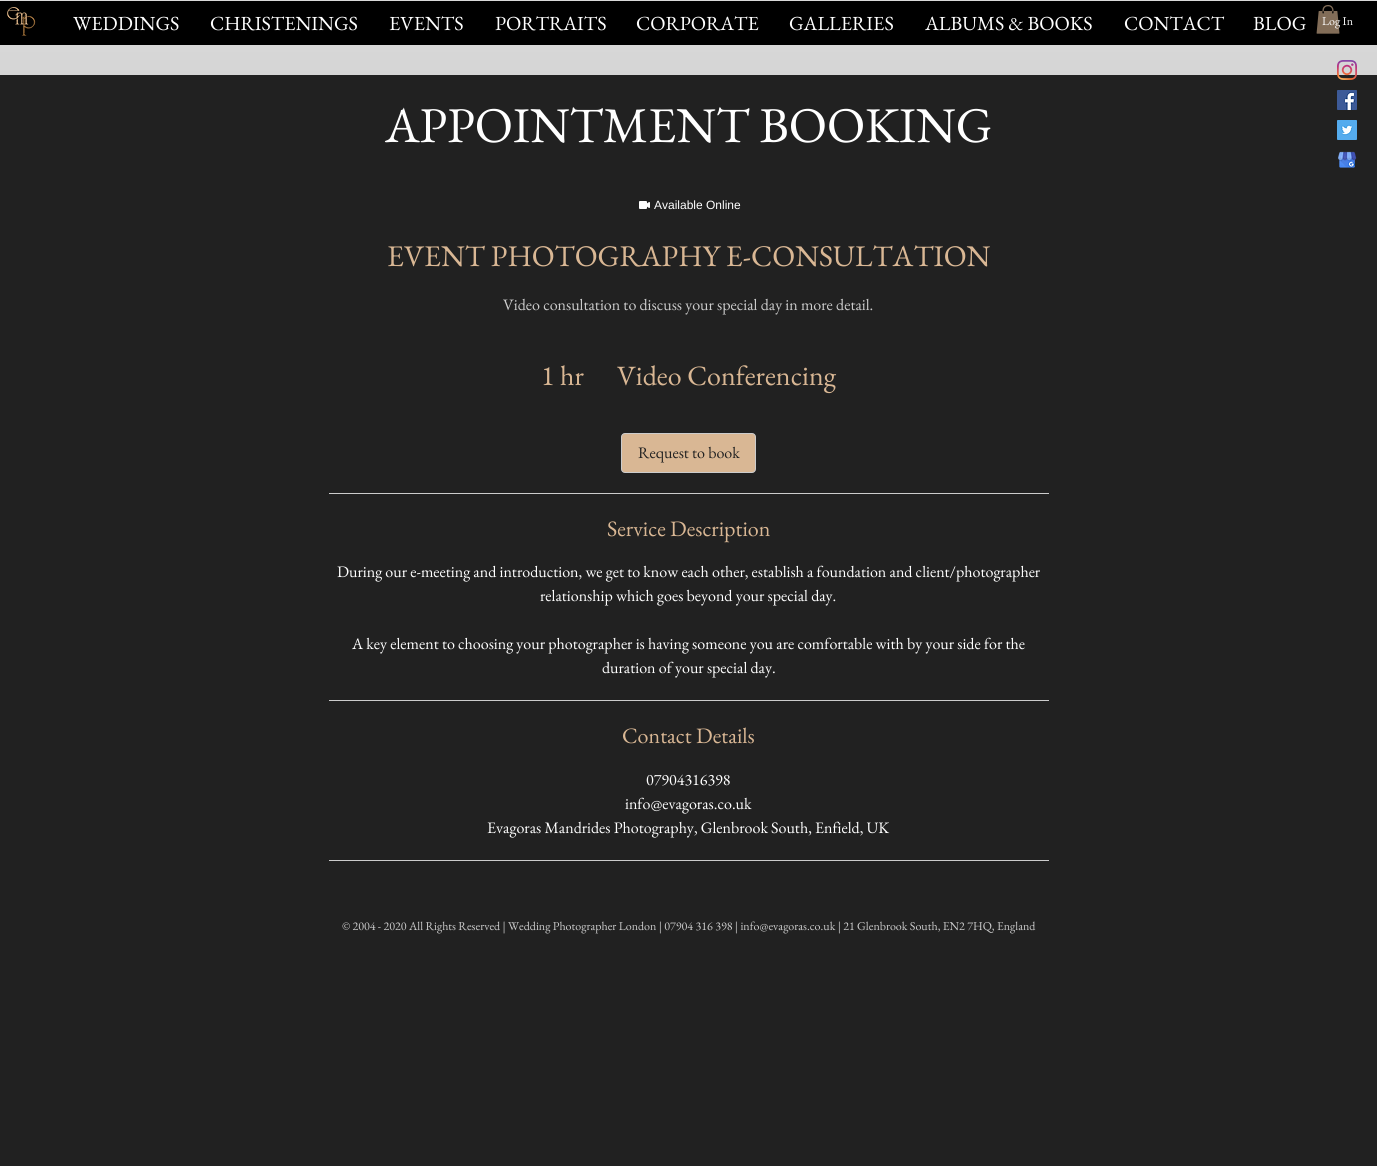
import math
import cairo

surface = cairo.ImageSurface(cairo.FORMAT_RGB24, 1377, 1166)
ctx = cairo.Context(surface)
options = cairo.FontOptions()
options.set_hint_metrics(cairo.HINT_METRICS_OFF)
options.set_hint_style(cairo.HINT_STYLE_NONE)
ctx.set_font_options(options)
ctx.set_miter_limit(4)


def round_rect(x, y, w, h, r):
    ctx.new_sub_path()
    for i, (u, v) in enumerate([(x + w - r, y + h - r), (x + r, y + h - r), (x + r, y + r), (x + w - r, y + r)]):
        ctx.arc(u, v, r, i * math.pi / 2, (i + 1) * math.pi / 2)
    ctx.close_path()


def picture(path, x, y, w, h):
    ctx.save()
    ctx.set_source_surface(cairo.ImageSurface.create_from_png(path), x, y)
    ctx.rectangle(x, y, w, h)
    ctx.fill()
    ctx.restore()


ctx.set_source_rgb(0.129, 0.129, 0.129)
ctx.paint()
ctx.set_source_rgb(0.8, 0.8, 0.8)
ctx.rectangle(0, 0, 1377, 75)
ctx.fill()
picture("img2.png", 0, 0, 1377, 75)
ctx.set_source_rgb(0, 0, 0)
ctx.rectangle(0, 1, 1377, 44)
ctx.fill()
picture("img1.png", 7, 7, 29, 29)
ctx.select_font_face("EB Garamond")
ctx.set_font_size(20)
ctx.set_source_rgb(1, 1, 1)
ctx.move_to(73, 30)
ctx.show_text("WEDDINGS")
ctx.move_to(210, 30)
ctx.show_text("CHRISTENINGS")
ctx.move_to(389, 30)
ctx.show_text("EVENTS")
ctx.move_to(495, 30)
ctx.show_text("PORTRAITS")
ctx.move_to(636, 30)
ctx.show_text("CORPORATE")
ctx.move_to(789, 30)
ctx.show_text("GALLERIES")
ctx.move_to(925, 30)
ctx.show_text("ALBUMS & BOOKS")
ctx.move_to(1124, 30)
ctx.show_text("CONTACT")
ctx.move_to(1253, 30)
ctx.show_text("BLOG")
picture("img3.png", 1316, 5, 24, 29)
ctx.set_font_size(12)
ctx.move_to(1322, 25)
ctx.show_text("Log In")
picture("img4.png", 1337, 60, 20, 20)
picture("img5.png", 1337, 90, 20, 20)
picture("img6.png", 1337, 120, 20, 20)
picture("img7.png", 1338, 151, 19, 17)
ctx.set_font_size(50)
ctx.move_to(385, 142)
ctx.show_text("APPOINTMENT BOOKING")
picture("img8.png", 639, 201, 11, 8)
ctx.select_font_face("Liberation Sans")
ctx.set_font_size(12)
ctx.move_to(654, 209)
ctx.show_text("Available Online")
ctx.select_font_face("EB Garamond")
ctx.set_font_size(30)
ctx.set_source_rgb(0.851, 0.718, 0.58)
ctx.move_to(387, 266)
ctx.show_text("EVENT PHOTOGRAPHY E-CONSULTATION")
ctx.set_font_size(16)
ctx.set_source_rgb(0.8, 0.8, 0.8)
ctx.move_to(503, 310)
ctx.show_text("Video consultation to discuss your special day in more detail.")
ctx.set_font_size(28)
ctx.set_source_rgb(0.851, 0.718, 0.58)
ctx.move_to(541, 385)
ctx.show_text("1 hr")
ctx.move_to(617, 385)
ctx.show_text("Video Conferencing")
round_rect(621.5, 433.5, 134, 39, 3.5)
ctx.fill_preserve()
ctx.set_source_rgb(0.8, 0.8, 0.8)
ctx.set_line_width(1)
ctx.stroke()
ctx.set_font_size(16)
ctx.set_source_rgb(0.129, 0.129, 0.129)
ctx.move_to(638, 458)
ctx.show_text("Request to book")
ctx.set_source_rgb(0.8, 0.8, 0.8)
ctx.rectangle(329, 493, 720, 1)
ctx.fill()
ctx.set_font_size(22)
ctx.set_source_rgb(0.851, 0.718, 0.58)
ctx.move_to(607, 536)
ctx.show_text("Service Description")
ctx.set_font_size(16)
ctx.set_source_rgb(1, 1, 1)
ctx.move_to(337, 577)
ctx.show_text("During our e-meeting and introduction, we get to know each other, establish a foundation and client/photographer")
ctx.move_to(540, 601)
ctx.show_text("relationship which goes beyond your special day.")
ctx.move_to(352, 649)
ctx.show_text("A key element to choosing your photographer is having someone you are comfortable with by your side for the")
ctx.move_to(602, 673)
ctx.show_text("duration of your special day.")
ctx.set_source_rgb(0.8, 0.8, 0.8)
ctx.rectangle(329, 700, 720, 1)
ctx.fill()
ctx.set_font_size(22)
ctx.set_source_rgb(0.851, 0.718, 0.58)
ctx.move_to(622, 743)
ctx.show_text("Contact Details")
ctx.set_font_size(16)
ctx.set_source_rgb(1, 1, 1)
ctx.move_to(646, 785)
ctx.show_text("07904316398")
ctx.move_to(625, 809)
ctx.show_text("info@evagoras.co.uk")
ctx.move_to(487, 833)
ctx.show_text("Evagoras Mandrides Photography, Glenbrook South, Enfield, UK")
ctx.set_source_rgb(0.8, 0.8, 0.8)
ctx.rectangle(329, 860, 720, 1)
ctx.fill()
ctx.set_font_size(12)
ctx.move_to(342, 930)
ctx.show_text("© 2004 - 2020 All Rights Reserved | Wedding Photographer London | 07904 316 398 | info@evagoras.co.uk | 21 Glenbrook South, EN2 7HQ, England")
surface.write_to_png("page.png")
